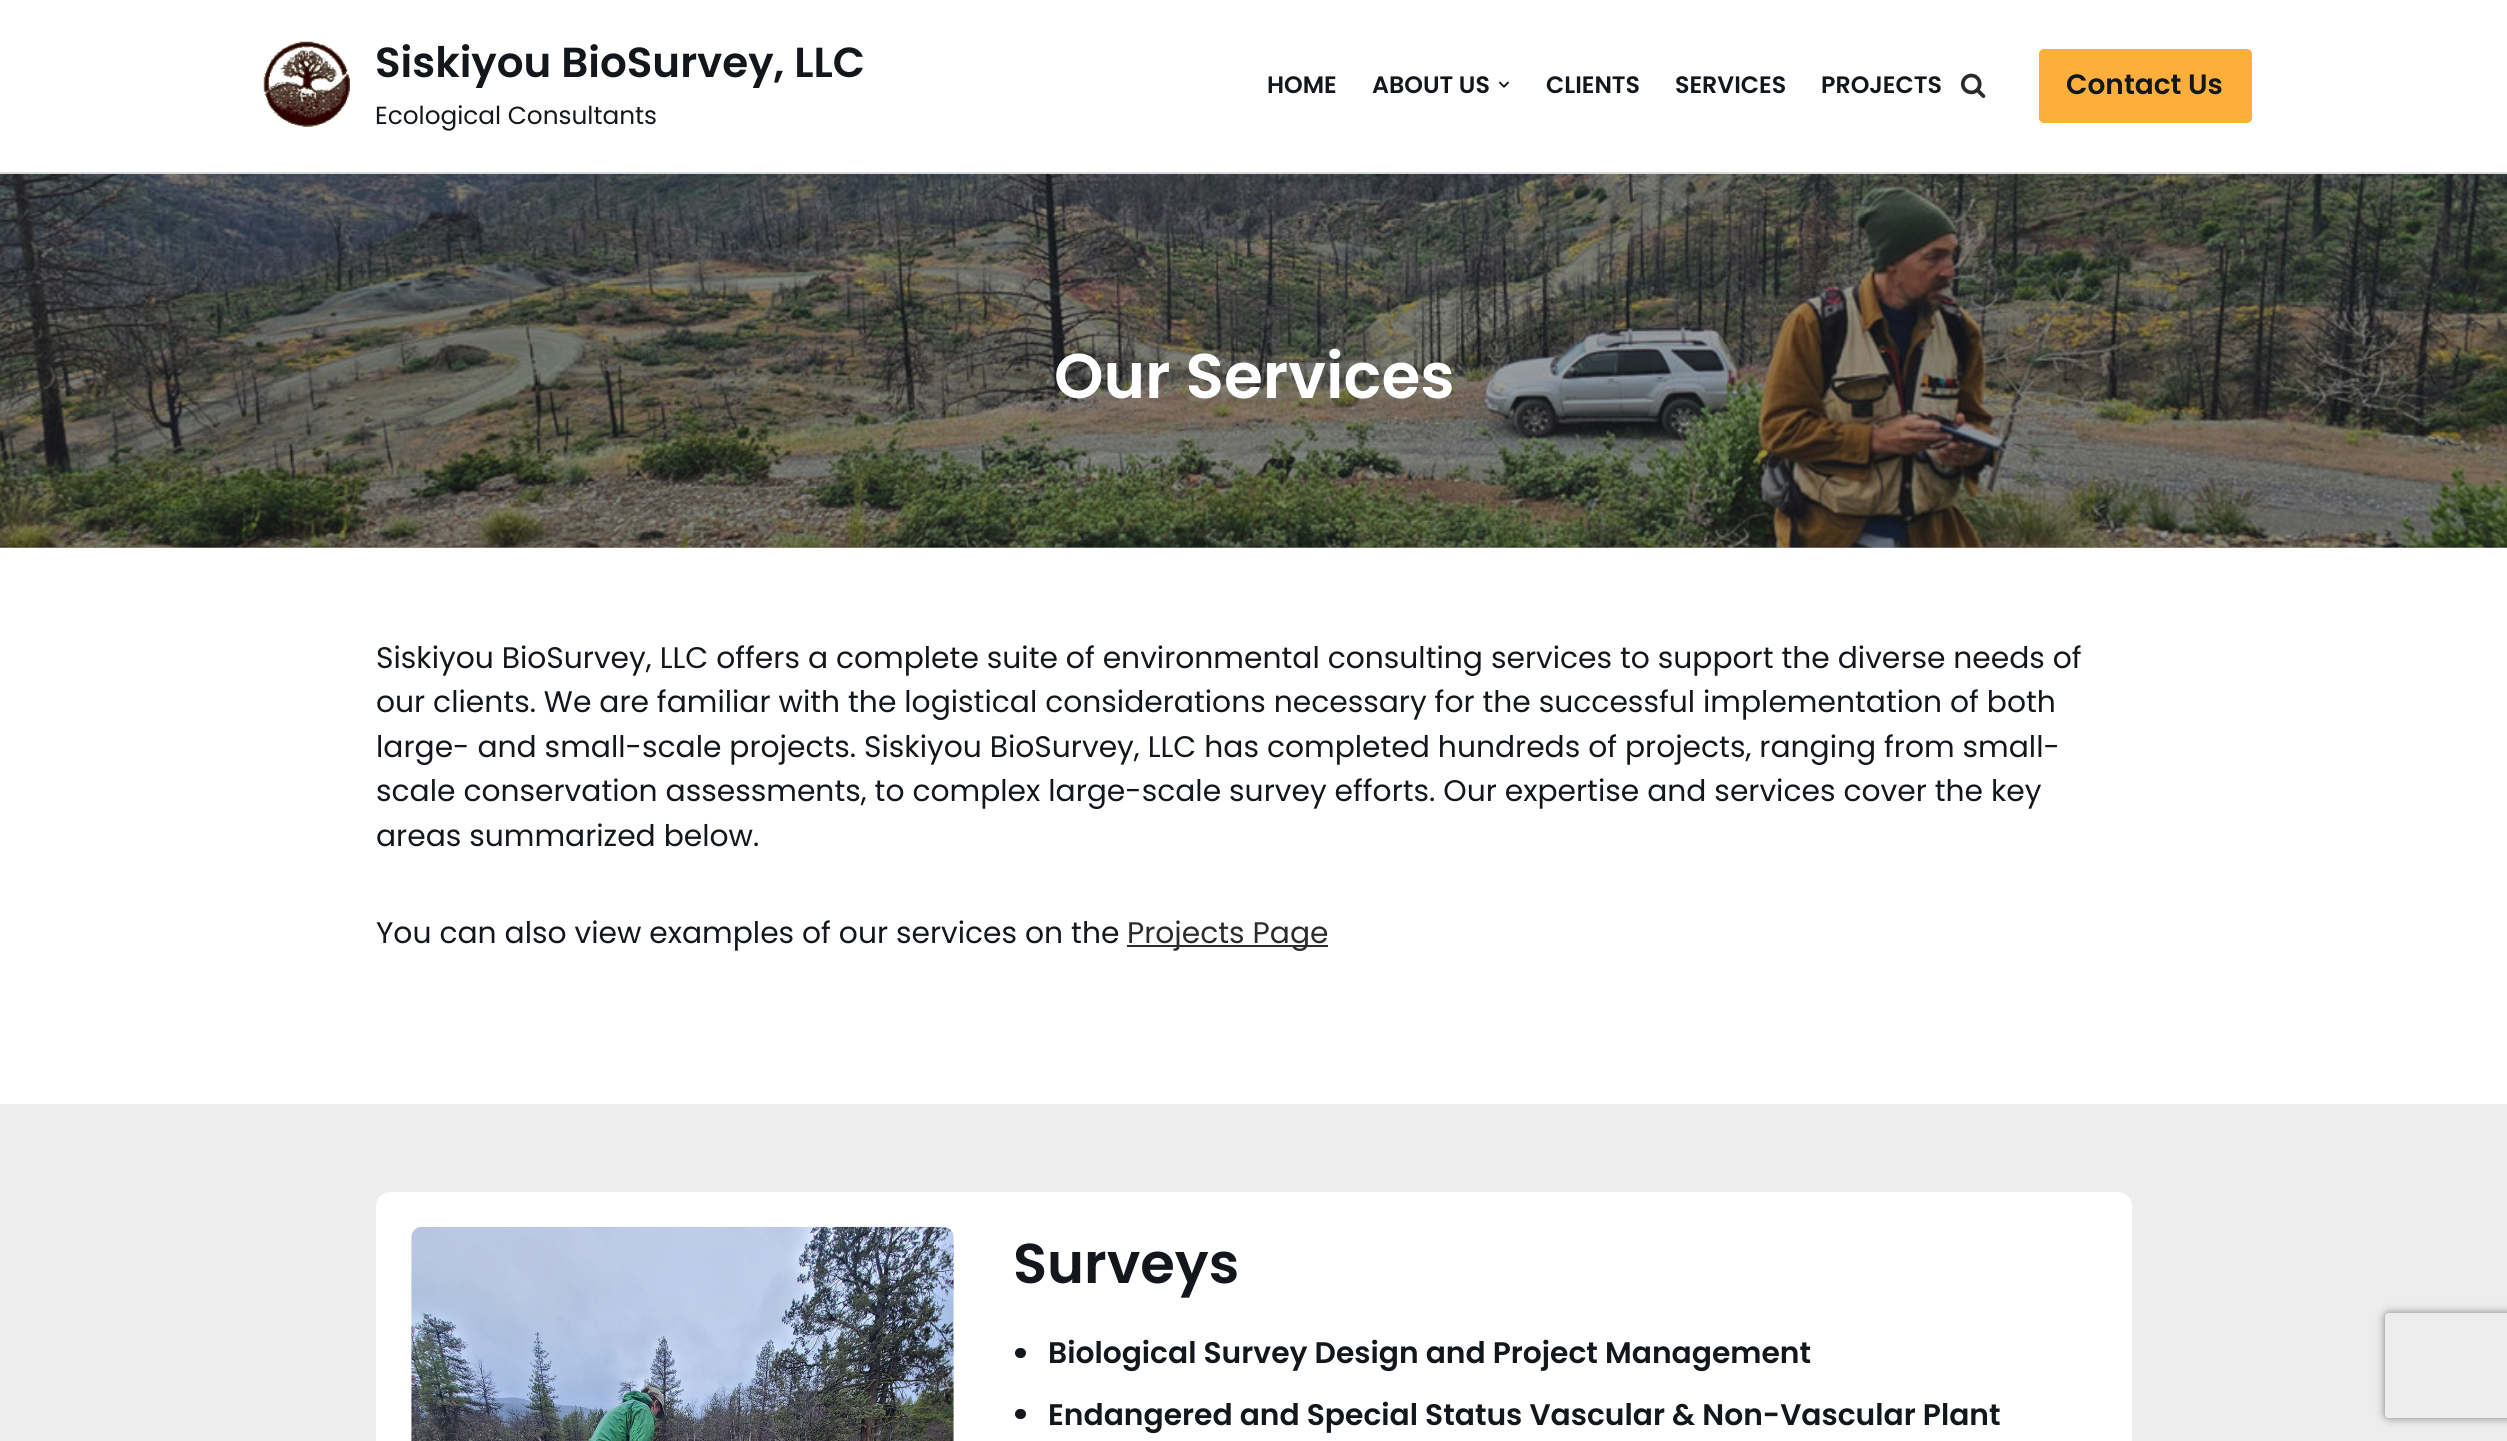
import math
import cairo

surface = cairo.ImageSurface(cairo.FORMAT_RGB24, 2507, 1441)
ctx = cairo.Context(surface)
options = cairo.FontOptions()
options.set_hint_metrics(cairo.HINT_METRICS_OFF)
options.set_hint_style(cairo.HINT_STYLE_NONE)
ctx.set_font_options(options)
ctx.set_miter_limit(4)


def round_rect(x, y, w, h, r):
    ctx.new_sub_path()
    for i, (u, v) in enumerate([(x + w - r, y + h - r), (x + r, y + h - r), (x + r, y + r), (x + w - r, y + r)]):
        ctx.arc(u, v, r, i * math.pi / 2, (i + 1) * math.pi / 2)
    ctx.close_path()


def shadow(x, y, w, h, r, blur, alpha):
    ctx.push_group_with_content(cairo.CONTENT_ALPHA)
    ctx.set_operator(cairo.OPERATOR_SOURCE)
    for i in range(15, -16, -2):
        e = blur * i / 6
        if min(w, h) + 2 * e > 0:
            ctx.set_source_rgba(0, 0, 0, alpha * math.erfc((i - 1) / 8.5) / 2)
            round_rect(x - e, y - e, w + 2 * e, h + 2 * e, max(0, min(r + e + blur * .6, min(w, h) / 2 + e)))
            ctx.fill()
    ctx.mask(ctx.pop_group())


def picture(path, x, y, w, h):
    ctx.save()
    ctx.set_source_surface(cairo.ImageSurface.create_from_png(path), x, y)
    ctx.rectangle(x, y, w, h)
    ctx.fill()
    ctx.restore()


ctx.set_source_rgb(1, 1, 1)
ctx.paint()
ctx.set_source_rgb(0.667, 0.667, 0.667)
ctx.rectangle(0, 547, 2507, 1)
ctx.fill()
ctx.set_source_rgb(0.855, 0.855, 0.855)
ctx.rectangle(0, 172, 2507, 2)
ctx.fill()
picture("img1.png", 263, 41, 87, 86)
ctx.select_font_face("Poppins SemiBold")
ctx.set_font_size(42)
ctx.set_source_rgb(0.078, 0.09, 0.11)
ctx.move_to(375, 77)
ctx.show_text("Siskiyou BioSurvey, LLC")
ctx.select_font_face("Poppins")
ctx.set_font_size(24.75)
ctx.move_to(375, 124)
ctx.show_text("Ecological Consultants")
ctx.select_font_face("Poppins SemiBold")
ctx.set_font_size(23.75)
ctx.move_to(1267, 93)
ctx.show_text("HOME")
ctx.move_to(1372, 93)
ctx.show_text("ABOUT US")
picture("img2.png", 1498, 81, 11, 7)
ctx.move_to(1546, 93)
ctx.show_text("CLIENTS")
ctx.move_to(1675, 93)
ctx.show_text("SERVICES")
ctx.move_to(1821, 93)
ctx.show_text("PROJECTS")
picture("img3.png", 1960, 73, 26, 25)
ctx.set_source_rgb(0.988, 0.686, 0.231)
round_rect(2039, 49, 213, 74, 5)
ctx.fill()
ctx.set_font_size(28)
ctx.set_source_rgb(0.078, 0.09, 0.11)
ctx.move_to(2066, 94)
ctx.show_text("Contact Us")
picture("img4.png", 0, 174, 2507, 374)
ctx.set_font_size(63)
ctx.set_source_rgb(1, 1, 1)
ctx.move_to(1054, 398)
ctx.show_text("Our Services")
ctx.select_font_face("Poppins")
ctx.set_font_size(29.75)
ctx.set_source_rgb(0.078, 0.09, 0.11)
ctx.move_to(376, 668)
ctx.show_text("Siskiyou BioSurvey, LLC offers a complete suite of environmental consulting services to support the diverse needs of")
ctx.move_to(376, 712)
ctx.show_text("our clients. We are familiar with the logistical considerations necessary for the successful implementation of both")
ctx.move_to(376, 757)
ctx.show_text("large- and small-scale projects. Siskiyou BioSurvey, LLC has completed hundreds of projects, ranging from small-")
ctx.move_to(376, 801)
ctx.show_text("scale conservation assessments, to complex large-scale survey efforts. Our expertise and services cover the key")
ctx.move_to(376, 846)
ctx.show_text("areas summarized below.")
ctx.move_to(376, 943)
ctx.show_text("You can also view examples of our services on the")
ctx.set_source_rgb(0.169, 0.169, 0.169)
ctx.rectangle(1127, 945, 201, 2)
ctx.fill()
ctx.move_to(1127, 943)
ctx.show_text("Projects Page")
ctx.set_source_rgb(0.929, 0.929, 0.929)
ctx.rectangle(0, 1104, 2507, 337)
ctx.fill()
ctx.set_source_rgb(1, 1, 1)
round_rect(376, 1192, 1756, 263, 14)
ctx.fill()
picture("img5.png", 411, 1226, 543, 215)
ctx.select_font_face("Poppins SemiBold")
ctx.set_font_size(56)
ctx.set_source_rgb(0.078, 0.09, 0.11)
ctx.move_to(1013, 1283)
ctx.show_text("Surveys")
round_rect(1015, 1348, 11, 10, 5)
ctx.fill()
ctx.set_font_size(29.75)
ctx.move_to(1048, 1363)
ctx.show_text("Biological Survey Design and Project Management")
round_rect(1015, 1409, 11, 10, 5)
ctx.fill()
ctx.move_to(1048, 1425)
ctx.show_text("Endangered and Special Status Vascular & Non-Vascular Plant")
ctx.save()
ctx.set_fill_rule(cairo.FILL_RULE_EVEN_ODD)
ctx.new_path()
ctx.move_to(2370, 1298)
ctx.line_to(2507, 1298)
ctx.line_to(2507, 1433)
ctx.line_to(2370, 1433)
ctx.close_path()
ctx.move_to(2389, 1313)
ctx.line_to(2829, 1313)
ctx.curve_to(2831, 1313, 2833, 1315, 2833, 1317)
ctx.line_to(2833, 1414)
ctx.curve_to(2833, 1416, 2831, 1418, 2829, 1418)
ctx.line_to(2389, 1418)
ctx.curve_to(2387, 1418, 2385, 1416, 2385, 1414)
ctx.line_to(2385, 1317)
ctx.curve_to(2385, 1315, 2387, 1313, 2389, 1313)
ctx.close_path()
ctx.clip()
ctx.set_source_rgb(0.502, 0.502, 0.502)
shadow(2385, 1313, 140, 105, 4, 4.5, 1)
ctx.restore()
surface.write_to_png("page.png")
